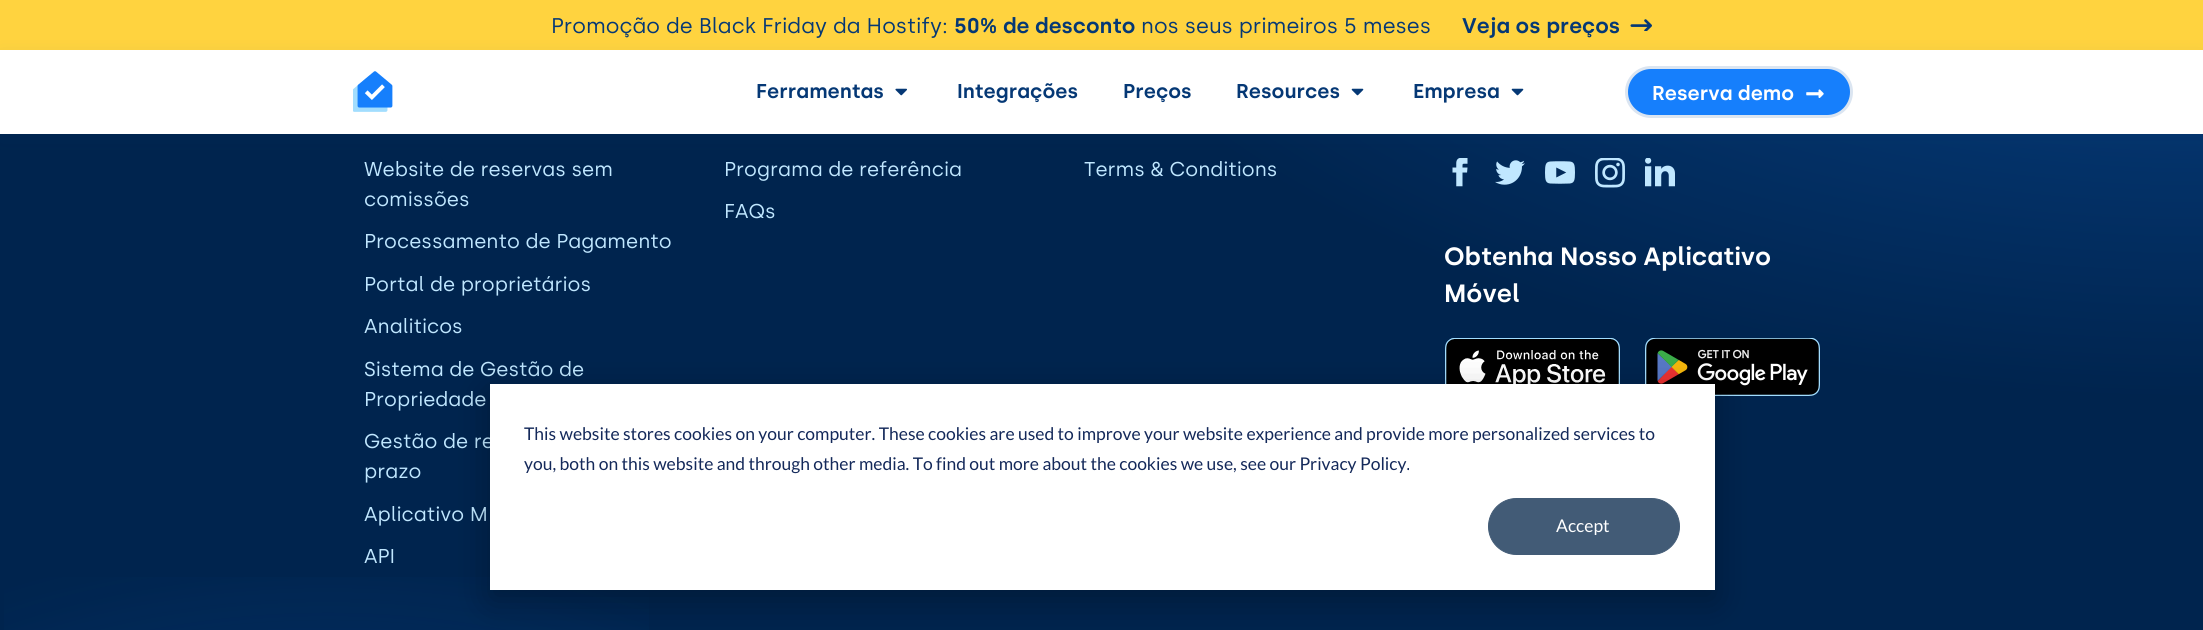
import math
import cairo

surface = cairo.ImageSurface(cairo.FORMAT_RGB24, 2203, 630)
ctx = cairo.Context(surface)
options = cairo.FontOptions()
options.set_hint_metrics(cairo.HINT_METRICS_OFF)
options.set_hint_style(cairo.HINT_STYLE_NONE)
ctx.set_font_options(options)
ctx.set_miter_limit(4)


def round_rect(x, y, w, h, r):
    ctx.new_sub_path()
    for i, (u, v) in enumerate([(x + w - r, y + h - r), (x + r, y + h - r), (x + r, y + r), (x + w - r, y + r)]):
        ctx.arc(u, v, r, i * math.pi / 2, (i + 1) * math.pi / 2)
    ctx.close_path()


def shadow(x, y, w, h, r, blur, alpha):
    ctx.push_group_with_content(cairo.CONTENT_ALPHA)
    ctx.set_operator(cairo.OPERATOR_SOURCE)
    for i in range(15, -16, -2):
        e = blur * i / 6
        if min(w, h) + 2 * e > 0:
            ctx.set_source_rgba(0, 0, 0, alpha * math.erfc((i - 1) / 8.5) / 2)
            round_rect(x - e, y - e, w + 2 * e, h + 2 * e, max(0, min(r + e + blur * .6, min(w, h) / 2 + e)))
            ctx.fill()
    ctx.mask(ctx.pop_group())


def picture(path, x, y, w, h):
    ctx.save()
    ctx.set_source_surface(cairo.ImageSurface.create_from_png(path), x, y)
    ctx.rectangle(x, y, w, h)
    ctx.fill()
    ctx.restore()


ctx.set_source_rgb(1, 1, 1)
ctx.paint()
ctx.set_source_rgb(1, 0.827, 0.247)
ctx.rectangle(0, 0, 2203, 50)
ctx.fill()
ctx.select_font_face("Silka")
ctx.set_font_size(21.25)
ctx.set_source_rgb(0.02, 0.22, 0.459)
ctx.move_to(551, 33)
ctx.show_text("Promoção de Black Friday da Hostify:")
ctx.select_font_face("Silka SemiBold")
ctx.move_to(954, 33)
ctx.show_text("50% de desconto")
ctx.select_font_face("Silka")
ctx.move_to(1141, 33)
ctx.show_text("nos seus primeiros 5 meses")
ctx.select_font_face("Silka SemiBold")
ctx.move_to(1462, 33)
ctx.show_text("Veja os preços")
picture("img1.png", 1630, 19, 22, 12)
gradient = cairo.RadialGradient(0, 0, 0, 0, 0, 1)
gradient.set_matrix(cairo.Matrix(1 / 1218, 0, 0, 1 / 612, -1 * 2204 / 1218, -1 * -213 / 612))
gradient.add_color_stop_rgba(0, 0.035, 0.282, 0.576, 1)
gradient.add_color_stop_rgba(1, 0, 0.141, 0.306, 1)
ctx.set_source(gradient)
ctx.rectangle(0, 134, 2203, 496)
ctx.fill()
picture("img6.png", 1452, 158, 16, 29)
picture("img7.png", 1495, 160, 30, 25)
picture("img8.png", 1545, 161, 30, 23)
picture("img9.png", 1595, 158, 30, 30)
picture("img10.png", 1645, 158, 30, 29)
ctx.set_source_rgb(0.02, 0.22, 0.459)
shadow(0, 55, 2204, 84, 0, 10, 0.08)
ctx.set_source_rgb(1, 1, 1)
ctx.rectangle(0, 50, 2203, 84)
ctx.fill()
picture("img2.png", 353, 71, 40, 41)
ctx.set_font_size(20)
ctx.set_source_rgb(0.02, 0.22, 0.459)
ctx.move_to(756, 98)
ctx.show_text("Ferramentas")
picture("img3.png", 895, 88, 12, 8)
ctx.move_to(957, 98)
ctx.show_text("Integrações")
ctx.move_to(1123, 98)
ctx.show_text("Preços")
ctx.move_to(1236, 98)
ctx.show_text("Resources")
picture("img4.png", 1351, 88, 13, 8)
ctx.move_to(1413, 98)
ctx.show_text("Empresa")
picture("img4.png", 1511, 88, 13, 8)
ctx.set_source_rgb(0.086, 0.498, 0.988)
round_rect(1626.5, 67.5, 225, 49, 24.5)
ctx.fill_preserve()
ctx.set_source_rgb(0.859, 0.898, 0.945)
ctx.set_line_width(3)
ctx.stroke()
ctx.set_source_rgb(1, 1, 1)
ctx.move_to(1652, 100)
ctx.show_text("Reserva demo")
picture("img5.png", 1806, 89, 18, 9)
gradient = cairo.RadialGradient(0, 0, 0, 0, 0, 1)
gradient.set_matrix(cairo.Matrix(1 / 654, 0, 0, 1 / 357, -1 * 328 / 654, -1 * 896 / 357))
gradient.add_color_stop_rgba(0, 0.086, 0.498, 0.988, 0.2)
gradient.add_color_stop_rgba(1, 0.086, 0.498, 0.988, 0)
ctx.set_source(gradient)
ctx.rectangle(4, 577, 645, 53)
ctx.fill()
ctx.select_font_face("Silka")
ctx.set_source_rgb(0.753, 0.906, 1)
ctx.move_to(364, 176)
ctx.show_text("Website de reservas sem")
ctx.move_to(364, 206)
ctx.show_text("comissões")
ctx.move_to(364, 248)
ctx.show_text("Processamento de Pagamento")
ctx.move_to(364, 291)
ctx.show_text("Portal de proprietários")
ctx.move_to(364, 333)
ctx.show_text("Analiticos")
ctx.move_to(364, 376)
ctx.show_text("Sistema de Gestão de")
ctx.move_to(364, 406)
ctx.show_text("Propriedade")
ctx.move_to(364, 448)
ctx.show_text("Gestão de re")
ctx.move_to(364, 478)
ctx.show_text("prazo")
ctx.move_to(364, 521)
ctx.show_text("Aplicativo M")
ctx.move_to(364, 563)
ctx.show_text("API")
ctx.move_to(724, 176)
ctx.show_text("Programa de referência")
ctx.move_to(724, 218)
ctx.show_text("FAQs")
ctx.move_to(1084, 176)
ctx.show_text("Terms & Conditions")
ctx.select_font_face("Silka SemiBold")
ctx.set_font_size(25)
ctx.set_source_rgb(1, 1, 1)
ctx.move_to(1444, 265)
ctx.show_text("Obtenha Nosso Aplicativo")
ctx.move_to(1444, 302)
ctx.show_text("Móvel")
picture("img11.png", 1445, 338, 175, 46)
picture("img12.png", 1645, 338, 175, 58)
ctx.set_source_rgb(0, 0, 0)
shadow(490, 394, 1225, 206, 0, 17.5, 0.28)
ctx.set_source_rgb(1, 1, 1)
ctx.rectangle(490, 384, 1225, 206)
ctx.fill()
ctx.select_font_face("Lato")
ctx.set_font_size(17.5)
ctx.set_source_rgb(0.082, 0.161, 0.353)
ctx.move_to(524, 440)
ctx.show_text("This website stores cookies on your computer. These cookies are used to improve your website experience and provide more personalized services to")
ctx.move_to(524, 470)
ctx.show_text("you, both on this website and through other media. To find out more about the cookies we use, see our Privacy Policy.")
ctx.set_source_rgb(0.259, 0.357, 0.463)
round_rect(1488.5, 498.5, 191, 56, 28)
ctx.fill_preserve()
ctx.set_line_width(1)
ctx.stroke()
ctx.set_source_rgb(1, 1, 1)
ctx.move_to(1556, 532)
ctx.show_text("Accept")
surface.write_to_png("page.png")
